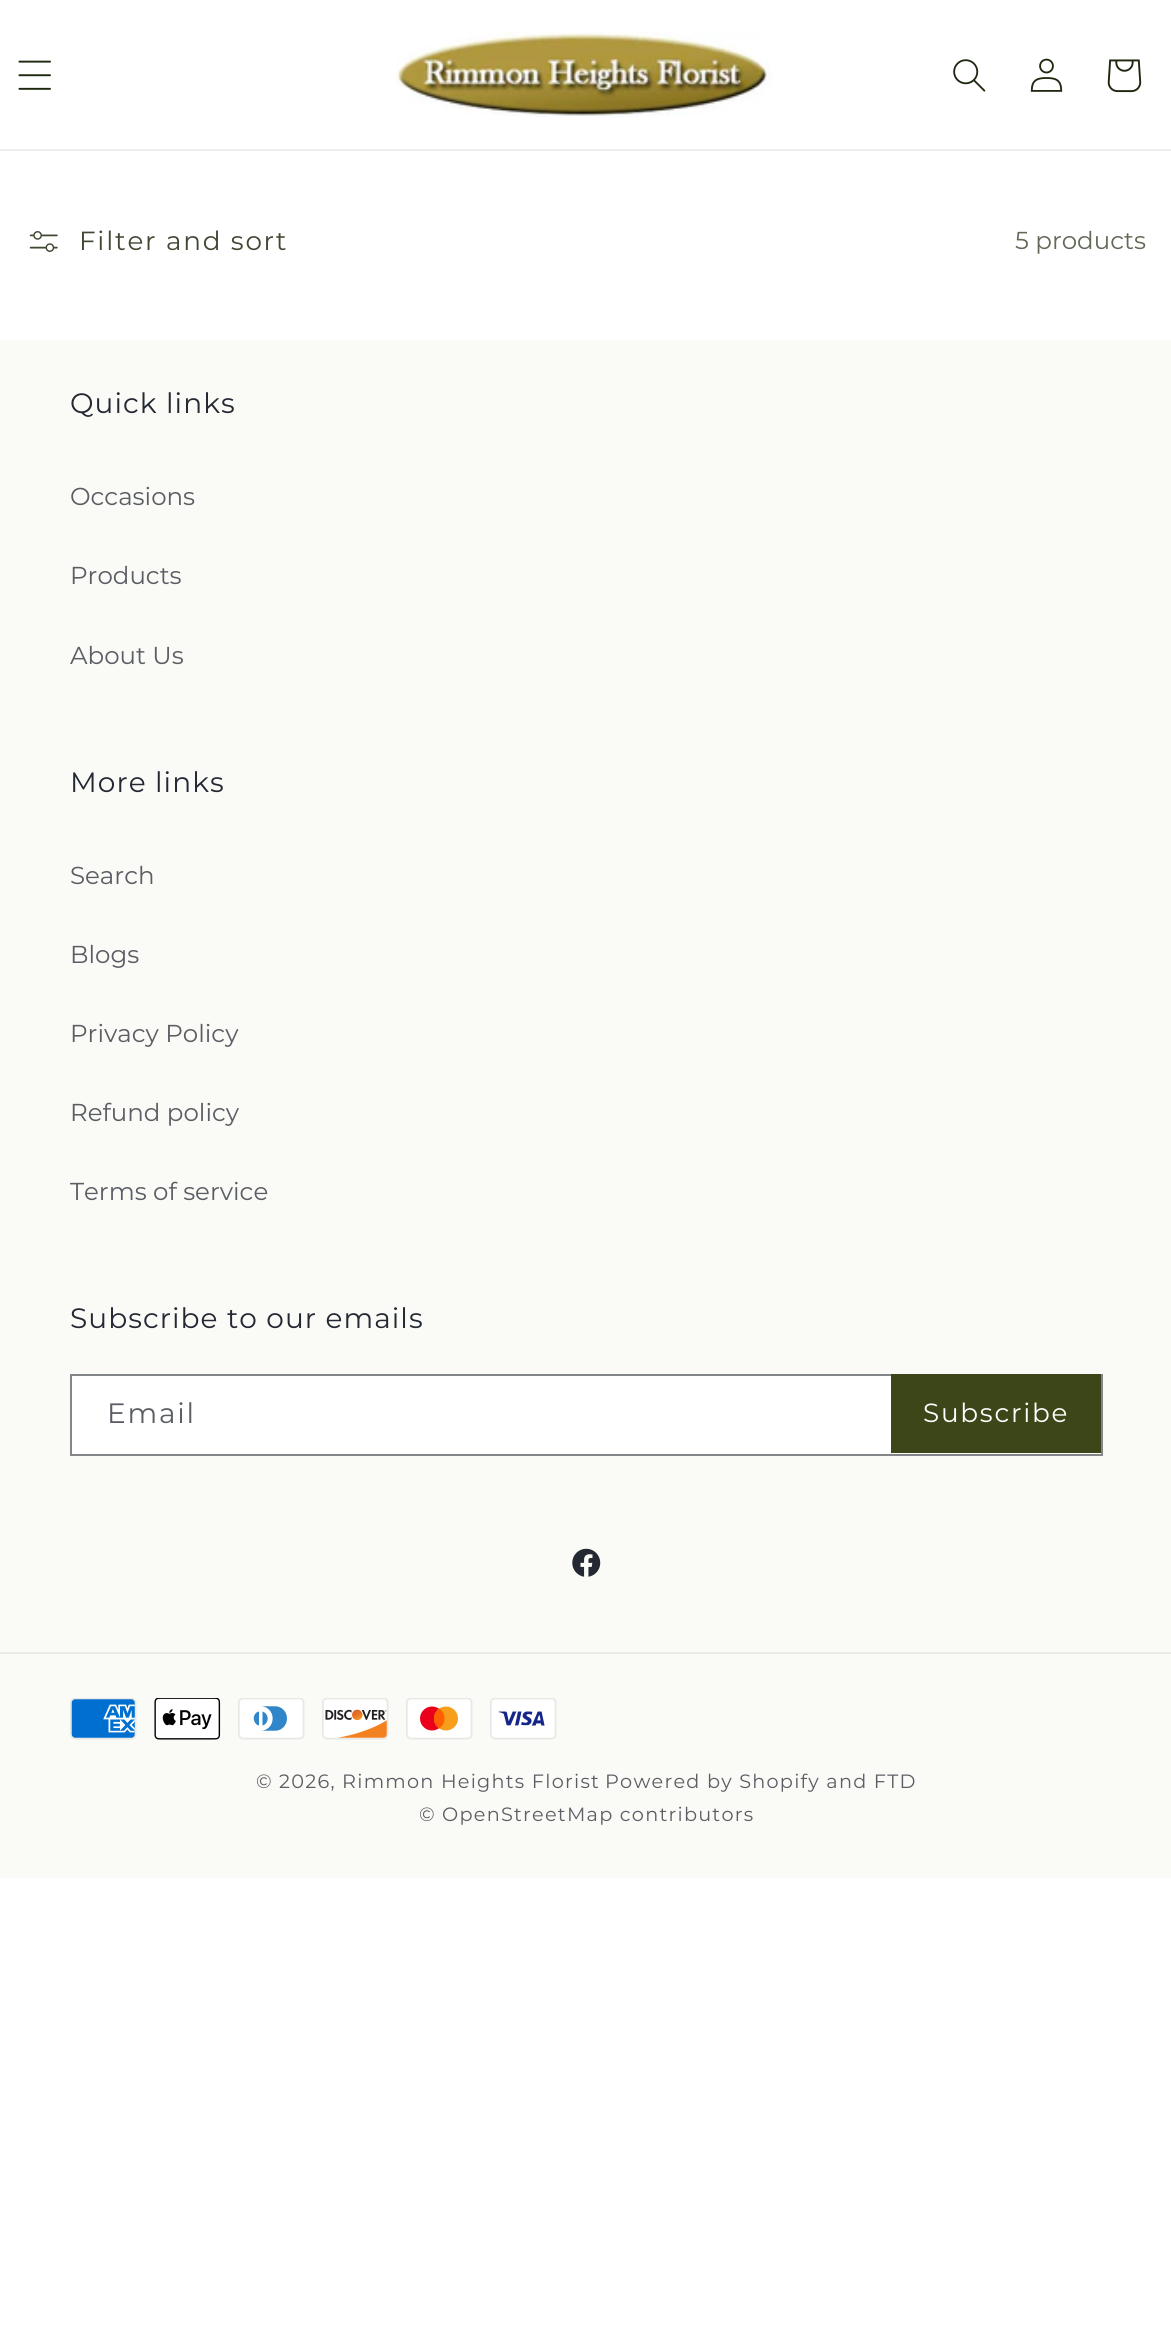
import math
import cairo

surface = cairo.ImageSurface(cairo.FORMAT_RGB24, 1171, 2343)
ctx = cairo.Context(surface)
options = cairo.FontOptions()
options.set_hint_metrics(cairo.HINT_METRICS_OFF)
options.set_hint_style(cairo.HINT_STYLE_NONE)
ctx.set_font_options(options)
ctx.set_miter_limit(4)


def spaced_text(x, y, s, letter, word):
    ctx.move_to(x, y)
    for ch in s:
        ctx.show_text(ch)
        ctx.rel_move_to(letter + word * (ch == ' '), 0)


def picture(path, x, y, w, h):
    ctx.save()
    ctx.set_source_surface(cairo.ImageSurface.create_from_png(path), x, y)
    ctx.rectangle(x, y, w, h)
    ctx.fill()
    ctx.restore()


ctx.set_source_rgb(1, 1, 1)
ctx.paint()
ctx.set_source_rgb(0.929, 0.933, 0.925)
ctx.rectangle(0, 149, 1171, 2)
ctx.fill()
picture("img1.png", 18, 60, 33, 30)
picture("img2.png", 395, 31, 377, 86)
picture("img3.png", 953, 59, 33, 33)
picture("img4.png", 1030, 58, 33, 34)
picture("img5.png", 1107, 59, 35, 34)
picture("img6.png", 29, 231, 29, 21)
ctx.select_font_face("Montserrat")
ctx.set_font_size(26.25)
ctx.set_source_rgb(0.251, 0.282, 0.2)
spaced_text(79, 250, "Filter and sort", 1.75, 0)
ctx.set_font_size(24.5)
ctx.set_source_rgb(0.384, 0.412, 0.341)
ctx.move_to(1015, 249)
ctx.show_text("5 products")
ctx.set_source_rgb(0.98, 0.98, 0.961)
ctx.rectangle(0, 340, 1171, 1538)
ctx.fill()
ctx.set_font_size(28)
ctx.set_source_rgb(0.141, 0.157, 0.2)
spaced_text(70, 413, "Quick links", 1.05, 0)
ctx.set_font_size(24.5)
ctx.set_source_rgb(0.353, 0.365, 0.392)
ctx.move_to(70, 505)
ctx.show_text("Occasions")
ctx.move_to(70, 584)
ctx.show_text("Products")
ctx.move_to(70, 664)
ctx.show_text("About Us")
ctx.set_font_size(28)
ctx.set_source_rgb(0.141, 0.157, 0.2)
spaced_text(70, 792, "More links", 1.05, 0)
ctx.set_font_size(24.5)
ctx.set_source_rgb(0.353, 0.365, 0.392)
ctx.move_to(70, 884)
ctx.show_text("Search")
ctx.move_to(70, 963)
ctx.show_text("Blogs")
ctx.move_to(70, 1042)
ctx.show_text("Privacy Policy")
ctx.move_to(70, 1121)
ctx.show_text("Refund policy")
ctx.move_to(70, 1200)
ctx.show_text("Terms of service")
ctx.set_font_size(28)
ctx.set_source_rgb(0.141, 0.157, 0.2)
spaced_text(70, 1328, "Subscribe to our emails", 1.05, 0)
ctx.set_source_rgb(1, 1, 1)
ctx.rectangle(72, 1376, 819, 78)
ctx.fill()
ctx.rectangle(71, 1375, 1031, 80)
ctx.set_source_rgb(0.518, 0.529, 0.541)
ctx.stroke()
ctx.set_source_rgb(0.353, 0.365, 0.392)
spaced_text(107, 1423, "Email", 1.75, 0)
ctx.set_source_rgb(0.235, 0.275, 0.094)
ctx.rectangle(891, 1374, 210, 79)
ctx.fill()
ctx.set_font_size(26.25)
ctx.set_source_rgb(1, 1, 1)
spaced_text(923, 1422, "Subscribe", 1.75, 0)
picture("img7.png", 572, 1548, 29, 29)
ctx.set_source_rgb(0.914, 0.914, 0.898)
ctx.rectangle(0, 1652, 1171, 2)
ctx.fill()
picture("img8.png", 70, 1698, 67, 42)
picture("img9.png", 154, 1698, 67, 42)
picture("img10.png", 238, 1698, 67, 42)
picture("img11.png", 322, 1698, 67, 42)
picture("img12.png", 406, 1698, 67, 42)
picture("img13.png", 490, 1698, 67, 42)
ctx.set_font_size(19.25)
ctx.set_source_rgb(0.353, 0.365, 0.392)
spaced_text(256, 1788, "© 2026, Rimmon Heights Florist", 1.25, 0)
spaced_text(605, 1788, "Powered by Shopify and FTD", 1.25, 0)
spaced_text(419, 1821, "© OpenStreetMap contributors", 1.25, 0)
surface.write_to_png("page.png")
